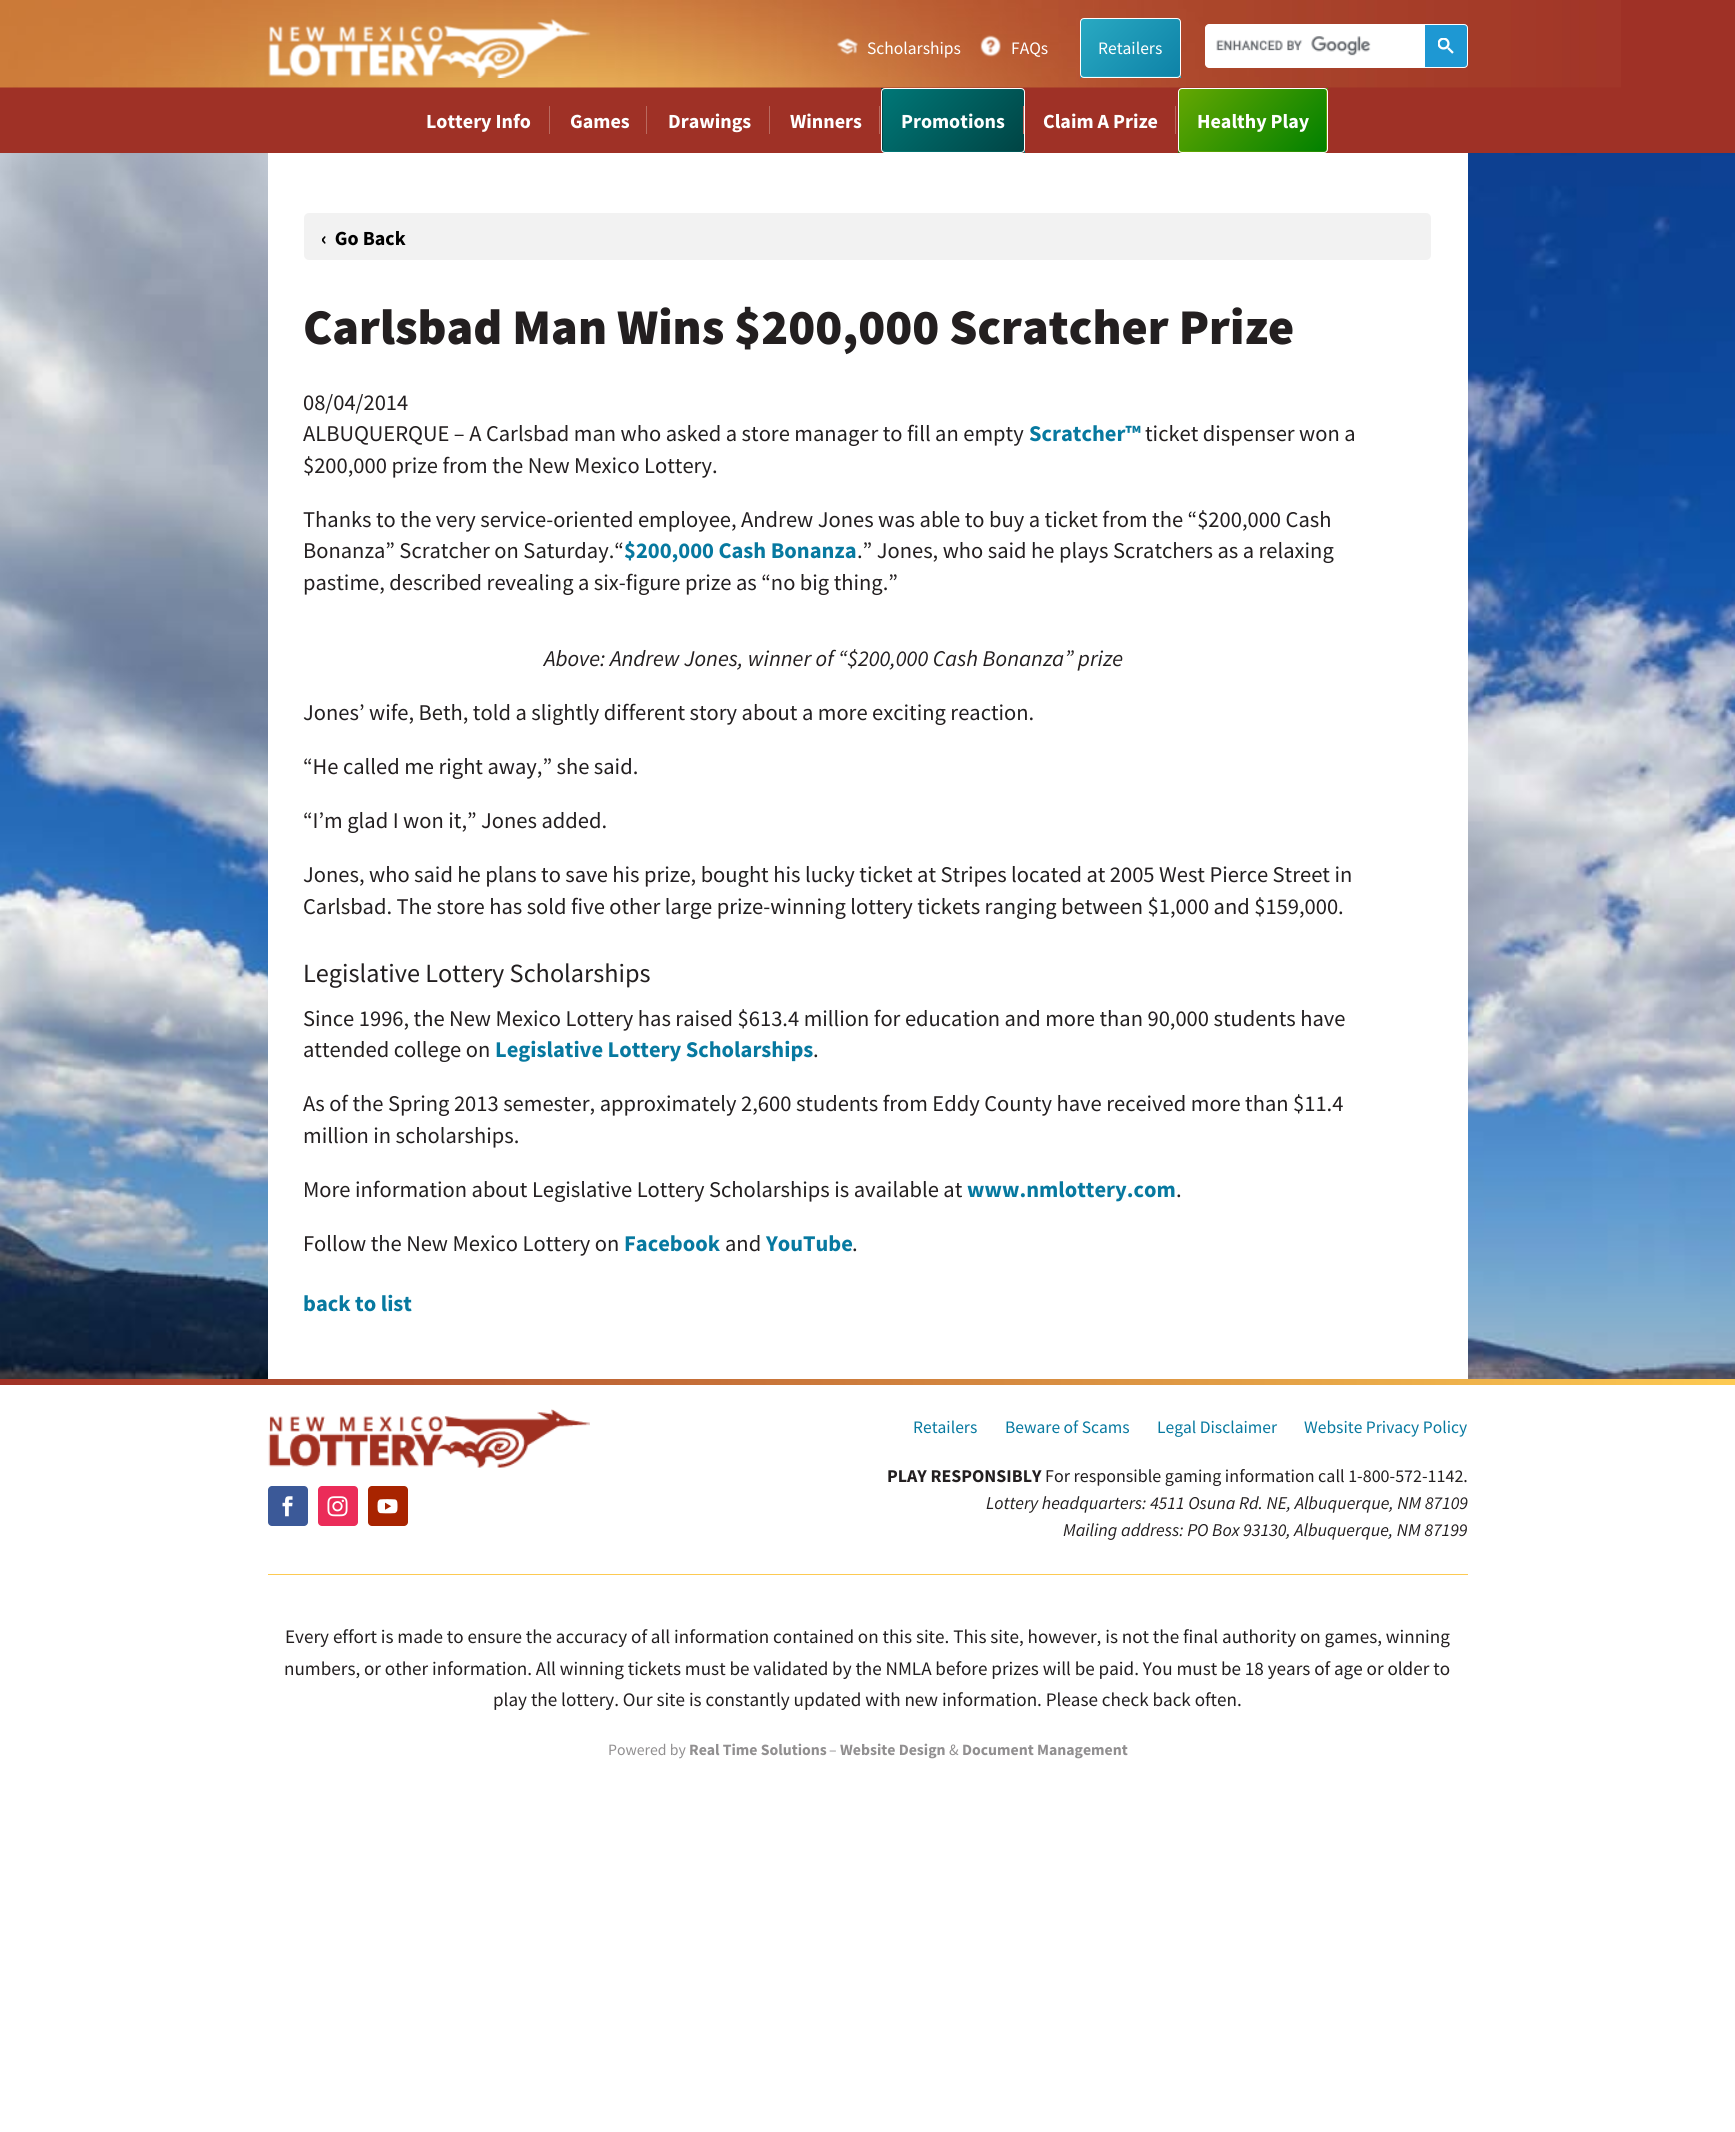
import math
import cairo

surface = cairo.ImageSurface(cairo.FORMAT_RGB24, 1735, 2132)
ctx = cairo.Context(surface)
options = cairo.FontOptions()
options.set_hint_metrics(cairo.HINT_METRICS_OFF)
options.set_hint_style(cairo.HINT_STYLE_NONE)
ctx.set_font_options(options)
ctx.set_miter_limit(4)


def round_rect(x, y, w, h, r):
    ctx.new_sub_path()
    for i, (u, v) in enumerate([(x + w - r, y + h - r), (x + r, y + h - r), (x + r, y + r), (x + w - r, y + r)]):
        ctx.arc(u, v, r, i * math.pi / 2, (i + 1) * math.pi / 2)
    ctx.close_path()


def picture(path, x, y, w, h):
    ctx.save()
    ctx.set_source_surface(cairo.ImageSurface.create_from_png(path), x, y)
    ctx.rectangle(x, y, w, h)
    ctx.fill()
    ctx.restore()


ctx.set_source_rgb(1, 1, 1)
ctx.paint()
ctx.set_source_rgb(0.624, 0.192, 0.149)
ctx.rectangle(0, 0, 1735, 153)
ctx.fill()
picture("img1.png", 0, 0, 1621, 88)
picture("img2.png", 268, 18, 323, 60)
picture("img3.png", 837, 38, 21, 17)
ctx.select_font_face("Source Sans Pro")
ctx.set_font_size(17.5)
ctx.set_source_rgb(1, 1, 1)
ctx.move_to(867, 54)
ctx.show_text("Scholarships")
picture("img4.png", 980, 35, 21, 22)
ctx.move_to(1011, 54)
ctx.show_text("FAQs")
gradient = cairo.LinearGradient(1092, 8, 1170, 87)
gradient.add_color_stop_rgba(0, 0.161, 0.663, 0.761, 1)
gradient.add_color_stop_rgba(1, 0.055, 0.51, 0.655, 1)
ctx.set_source(gradient)
ctx.rectangle(1081, 19, 99, 57)
ctx.fill()
gradient = cairo.LinearGradient(993, 66, 1071, 144)
gradient.add_color_stop_rgba(0, 0.161, 0.663, 0.761, 1)
gradient.add_color_stop_rgba(1, 0.055, 0.51, 0.655, 1)
ctx.set_source(gradient)
ctx.rectangle(1080, 76, 1, 2)
ctx.fill()
ctx.save()
round_rect(1080, 18, 101, 60, 4)
ctx.clip()
gradient = cairo.LinearGradient(1092, 66, 1170, 144)
gradient.add_color_stop_rgba(0, 0.161, 0.663, 0.761, 1)
gradient.add_color_stop_rgba(1, 0.055, 0.51, 0.655, 1)
ctx.set_source(gradient)
ctx.rectangle(1081, 76, 99, 2)
ctx.fill()
ctx.restore()
gradient = cairo.LinearGradient(1190, 66, 1268, 144)
gradient.add_color_stop_rgba(0, 0.161, 0.663, 0.761, 1)
gradient.add_color_stop_rgba(1, 0.055, 0.51, 0.655, 1)
ctx.set_source(gradient)
ctx.rectangle(1180, 76, 1, 2)
ctx.fill()
round_rect(1080.5, 18.5, 100, 59, 3.5)
ctx.set_source_rgb(1, 1, 1)
ctx.set_line_width(1)
ctx.stroke()
ctx.move_to(1098, 54)
ctx.show_text("Retailers")
ctx.new_path()
ctx.move_to(1209, 24)
ctx.line_to(1424, 24)
ctx.line_to(1424, 68)
ctx.line_to(1209, 68)
ctx.curve_to(1207, 68, 1205, 66, 1205, 64)
ctx.line_to(1205, 28)
ctx.curve_to(1205, 26, 1207, 24, 1209, 24)
ctx.close_path()
ctx.fill()
picture("img5.png", 1216, 36, 155, 20)
ctx.set_source_rgb(0.118, 0.596, 0.827)
ctx.new_path()
ctx.move_to(1424.5, 24.5)
ctx.line_to(1464, 24.5)
ctx.curve_to(1466, 24.5, 1467.5, 26, 1467.5, 28)
ctx.line_to(1467.5, 64)
ctx.curve_to(1467.5, 66, 1466, 67.5, 1464, 67.5)
ctx.line_to(1424.5, 67.5)
ctx.close_path()
ctx.fill_preserve()
ctx.set_source_rgb(1, 1, 1)
ctx.stroke()
picture("img6.png", 1438, 38, 16, 16)
ctx.set_source_rgb(0.729, 0.416, 0.373)
ctx.rectangle(549, 106, 1, 28)
ctx.fill()
ctx.select_font_face("Source Sans Pro", cairo.FONT_SLANT_NORMAL, cairo.FONT_WEIGHT_BOLD)
ctx.set_font_size(20)
ctx.set_source_rgb(1, 1, 1)
ctx.move_to(426, 128)
ctx.show_text("Lottery Info")
ctx.set_source_rgb(0.729, 0.416, 0.373)
ctx.rectangle(646, 106, 1, 28)
ctx.fill()
ctx.set_source_rgb(1, 1, 1)
ctx.move_to(570, 128)
ctx.show_text("Games")
ctx.set_source_rgb(0.729, 0.416, 0.373)
ctx.rectangle(769, 106, 1, 28)
ctx.fill()
ctx.set_source_rgb(1, 1, 1)
ctx.move_to(668, 128)
ctx.show_text("Drawings")
ctx.set_source_rgb(0.729, 0.416, 0.373)
ctx.rectangle(879, 106, 1, 28)
ctx.fill()
ctx.set_source_rgb(1, 1, 1)
ctx.move_to(790, 128)
ctx.show_text("Winners")
gradient = cairo.LinearGradient(761, 6.6, 863, 108)
gradient.add_color_stop_rgba(0, 0, 0.467, 0.467, 1)
gradient.add_color_stop_rgba(1, 0, 0.267, 0.267, 1)
ctx.set_source(gradient)
ctx.rectangle(881, 88, 2, 1)
ctx.fill()
ctx.save()
round_rect(881, 88, 144, 65, 4)
ctx.clip()
gradient = cairo.LinearGradient(761, 69, 863, 171)
gradient.add_color_stop_rgba(0, 0, 0.467, 0.467, 1)
gradient.add_color_stop_rgba(1, 0, 0.267, 0.267, 1)
ctx.set_source(gradient)
ctx.rectangle(881, 89, 2, 62)
ctx.fill()
ctx.restore()
gradient = cairo.LinearGradient(902, 69, 1004, 171)
gradient.add_color_stop_rgba(0, 0, 0.467, 0.467, 1)
gradient.add_color_stop_rgba(1, 0, 0.267, 0.267, 1)
ctx.set_source(gradient)
ctx.rectangle(883, 89, 141, 62)
ctx.fill()
ctx.save()
round_rect(881, 88, 144, 65, 4)
ctx.clip()
gradient = cairo.LinearGradient(902, 132, 1004, 233)
gradient.add_color_stop_rgba(0, 0, 0.467, 0.467, 1)
gradient.add_color_stop_rgba(1, 0, 0.267, 0.267, 1)
ctx.set_source(gradient)
ctx.rectangle(883, 151, 141, 2)
ctx.fill()
ctx.restore()
gradient = cairo.LinearGradient(1043, 132, 1145, 233)
gradient.add_color_stop_rgba(0, 0, 0.467, 0.467, 1)
gradient.add_color_stop_rgba(1, 0, 0.267, 0.267, 1)
ctx.set_source(gradient)
ctx.rectangle(1024, 151, 1, 2)
ctx.fill()
round_rect(881.5, 88.5, 143, 64, 3.5)
ctx.set_source_rgb(1, 1, 1)
ctx.stroke()
ctx.set_source_rgb(0.729, 0.416, 0.373)
ctx.rectangle(1023, 106, 1, 28)
ctx.fill()
ctx.set_source_rgb(1, 1, 1)
ctx.move_to(901, 128)
ctx.show_text("Promotions")
ctx.set_source_rgb(0.729, 0.416, 0.373)
ctx.rectangle(1175, 106, 1, 28)
ctx.fill()
ctx.set_source_rgb(1, 1, 1)
ctx.move_to(1043, 128)
ctx.show_text("Claim A Prize")
gradient = cairo.LinearGradient(1348, 5, 1453, 110)
gradient.add_color_stop_rgba(0, 0.396, 0.655, 0.008, 1)
gradient.add_color_stop_rgba(1, 0, 0.502, 0, 1)
ctx.set_source(gradient)
ctx.rectangle(1326, 88, 2, 1)
ctx.fill()
gradient = cairo.LinearGradient(1200, 68, 1305, 173)
gradient.add_color_stop_rgba(0, 0.396, 0.655, 0.008, 1)
gradient.add_color_stop_rgba(1, 0, 0.502, 0, 1)
ctx.set_source(gradient)
ctx.rectangle(1179, 89, 147, 62)
ctx.fill()
ctx.save()
round_rect(1178, 88, 150, 65, 4)
ctx.clip()
gradient = cairo.LinearGradient(1348, 68, 1453, 173)
gradient.add_color_stop_rgba(0, 0.396, 0.655, 0.008, 1)
gradient.add_color_stop_rgba(1, 0, 0.502, 0, 1)
ctx.set_source(gradient)
ctx.rectangle(1326, 89, 2, 62)
ctx.fill()
ctx.restore()
gradient = cairo.LinearGradient(1053, 130, 1158, 235)
gradient.add_color_stop_rgba(0, 0.396, 0.655, 0.008, 1)
gradient.add_color_stop_rgba(1, 0, 0.502, 0, 1)
ctx.set_source(gradient)
ctx.rectangle(1178, 151, 1, 2)
ctx.fill()
ctx.save()
round_rect(1178, 88, 150, 65, 4)
ctx.clip()
gradient = cairo.LinearGradient(1200, 130, 1305, 235)
gradient.add_color_stop_rgba(0, 0.396, 0.655, 0.008, 1)
gradient.add_color_stop_rgba(1, 0, 0.502, 0, 1)
ctx.set_source(gradient)
ctx.rectangle(1179, 151, 147, 2)
ctx.fill()
ctx.restore()
round_rect(1178.5, 88.5, 149, 64, 3.5)
ctx.set_source_rgb(1, 1, 1)
ctx.stroke()
ctx.move_to(1197, 128)
ctx.show_text("Healthy Play")
picture("img7.png", 0, 153, 1735, 1226)
ctx.rectangle(268, 153, 1200, 1226)
ctx.fill()
ctx.set_source_rgb(0.949, 0.949, 0.949)
round_rect(304, 213, 1127, 47, 5)
ctx.fill()
ctx.set_source_rgb(0, 0, 0)
ctx.move_to(321, 245)
ctx.show_text("‹  Go Back")
ctx.select_font_face("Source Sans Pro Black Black")
ctx.set_font_size(50)
ctx.set_source_rgb(0.137, 0.122, 0.125)
ctx.move_to(303, 344)
ctx.show_text("Carlsbad Man Wins $200,000 Scratcher Prize")
ctx.select_font_face("Source Sans Pro")
ctx.set_font_size(22.5)
ctx.move_to(303, 410)
ctx.show_text("08/04/2014")
ctx.move_to(303, 441)
ctx.show_text("ALBUQUERQUE – A Carlsbad man who asked a store manager to fill an empty")
ctx.select_font_face("Source Sans Pro", cairo.FONT_SLANT_NORMAL, cairo.FONT_WEIGHT_BOLD)
ctx.set_source_rgb(0.031, 0.475, 0.627)
ctx.move_to(1029, 441)
ctx.show_text("Scratcher™")
ctx.select_font_face("Source Sans Pro")
ctx.set_source_rgb(0.137, 0.122, 0.125)
ctx.move_to(1145, 441)
ctx.show_text("ticket dispenser won a")
ctx.move_to(303, 473)
ctx.show_text("$200,000 prize from the New Mexico Lottery.")
ctx.move_to(303, 527)
ctx.show_text("Thanks to the very service-oriented employee, Andrew Jones was able to buy a ticket from the “$200,000 Cash")
ctx.move_to(303, 558)
ctx.show_text("Bonanza” Scratcher on Saturday.“")
ctx.select_font_face("Source Sans Pro", cairo.FONT_SLANT_NORMAL, cairo.FONT_WEIGHT_BOLD)
ctx.set_source_rgb(0.031, 0.475, 0.627)
ctx.move_to(624, 558)
ctx.show_text("$200,000 Cash Bonanza")
ctx.select_font_face("Source Sans Pro")
ctx.set_source_rgb(0.137, 0.122, 0.125)
ctx.move_to(857, 558)
ctx.show_text(".” Jones, who said he plays Scratchers as a relaxing")
ctx.move_to(303, 590)
ctx.show_text("pastime, described revealing a six-figure prize as “no big thing.”")
ctx.select_font_face("Source Sans Pro", cairo.FONT_SLANT_ITALIC)
ctx.move_to(544, 666)
ctx.show_text("Above: Andrew Jones, winner of “$200,000 Cash Bonanza” prize")
ctx.select_font_face("Source Sans Pro")
ctx.move_to(303, 720)
ctx.show_text("Jones’ wife, Beth, told a slightly different story about a more exciting reaction.")
ctx.move_to(303, 774)
ctx.show_text("“He called me right away,” she said.")
ctx.move_to(303, 828)
ctx.show_text("“I’m glad I won it,” Jones added.")
ctx.move_to(303, 882)
ctx.show_text("Jones, who said he plans to save his prize, bought his lucky ticket at Stripes located at 2005 West Pierce Street in")
ctx.move_to(303, 914)
ctx.show_text("Carlsbad. The store has sold five other large prize-winning lottery tickets ranging between $1,000 and $159,000.")
ctx.set_font_size(26.25)
ctx.move_to(303, 982)
ctx.show_text("Legislative Lottery Scholarships")
ctx.set_font_size(22.5)
ctx.move_to(303, 1026)
ctx.show_text("Since 1996, the New Mexico Lottery has raised $613.4 million for education and more than 90,000 students have")
ctx.move_to(303, 1057)
ctx.show_text("attended college on")
ctx.select_font_face("Source Sans Pro", cairo.FONT_SLANT_NORMAL, cairo.FONT_WEIGHT_BOLD)
ctx.set_source_rgb(0.031, 0.475, 0.627)
ctx.move_to(495, 1057)
ctx.show_text("Legislative Lottery Scholarships")
ctx.select_font_face("Source Sans Pro")
ctx.set_source_rgb(0.137, 0.122, 0.125)
ctx.move_to(813, 1057)
ctx.show_text(".")
ctx.move_to(303, 1111)
ctx.show_text("As of the Spring 2013 semester, approximately 2,600 students from Eddy County have received more than $11.4")
ctx.move_to(303, 1143)
ctx.show_text("million in scholarships.")
ctx.move_to(303, 1197)
ctx.show_text("More information about Legislative Lottery Scholarships is available at")
ctx.select_font_face("Source Sans Pro", cairo.FONT_SLANT_NORMAL, cairo.FONT_WEIGHT_BOLD)
ctx.set_source_rgb(0.031, 0.475, 0.627)
ctx.move_to(967, 1197)
ctx.show_text("www.nmlottery.com")
ctx.select_font_face("Source Sans Pro")
ctx.set_source_rgb(0.137, 0.122, 0.125)
ctx.move_to(1176, 1197)
ctx.show_text(".")
ctx.move_to(303, 1251)
ctx.show_text("Follow the New Mexico Lottery on")
ctx.select_font_face("Source Sans Pro", cairo.FONT_SLANT_NORMAL, cairo.FONT_WEIGHT_BOLD)
ctx.set_source_rgb(0.031, 0.475, 0.627)
ctx.move_to(624, 1251)
ctx.show_text("Facebook")
ctx.select_font_face("Source Sans Pro")
ctx.set_source_rgb(0.137, 0.122, 0.125)
ctx.move_to(725, 1251)
ctx.show_text("and")
ctx.select_font_face("Source Sans Pro", cairo.FONT_SLANT_NORMAL, cairo.FONT_WEIGHT_BOLD)
ctx.set_source_rgb(0.031, 0.475, 0.627)
ctx.move_to(766, 1251)
ctx.show_text("YouTube")
ctx.select_font_face("Source Sans Pro")
ctx.set_source_rgb(0.137, 0.122, 0.125)
ctx.move_to(852, 1251)
ctx.show_text(".")
ctx.select_font_face("Source Sans Pro", cairo.FONT_SLANT_NORMAL, cairo.FONT_WEIGHT_BOLD)
ctx.set_source_rgb(0.031, 0.475, 0.627)
ctx.move_to(303, 1311)
ctx.show_text("back to list")
gradient = cairo.LinearGradient(0, 1382, 1735, 1382)
gradient.add_color_stop_rgba(0, 0.624, 0.192, 0.149, 1)
gradient.add_color_stop_rgba(1, 0.992, 0.792, 0.322, 1)
ctx.set_source(gradient)
ctx.rectangle(0, 1379, 1735, 6)
ctx.fill()
picture("img8.png", 268, 1409, 322, 59)
ctx.set_source_rgb(0.231, 0.349, 0.596)
round_rect(268, 1486, 40, 40, 4)
ctx.fill()
picture("img9.png", 282, 1496, 11, 21)
ctx.set_source_rgb(0.918, 0.173, 0.349)
round_rect(318, 1486, 40, 40, 4)
ctx.fill()
picture("img10.png", 327, 1496, 21, 21)
ctx.set_source_rgb(0.659, 0.141, 0)
round_rect(368, 1486, 40, 40, 4)
ctx.fill()
picture("img11.png", 377, 1499, 21, 15)
ctx.select_font_face("Source Sans Pro")
ctx.set_font_size(17.5)
ctx.set_source_rgb(0.031, 0.475, 0.627)
ctx.move_to(913, 1433)
ctx.show_text("Retailers")
ctx.move_to(1005, 1433)
ctx.show_text("Beware of Scams")
ctx.move_to(1157, 1433)
ctx.show_text("Legal Disclaimer")
ctx.move_to(1304, 1433)
ctx.show_text("Website Privacy Policy")
ctx.select_font_face("Source Sans Pro", cairo.FONT_SLANT_NORMAL, cairo.FONT_WEIGHT_BOLD)
ctx.set_font_size(18)
ctx.set_source_rgb(0.137, 0.122, 0.125)
ctx.move_to(887, 1482)
ctx.show_text("PLAY RESPONSIBLY")
ctx.select_font_face("Source Sans Pro")
ctx.move_to(1045, 1482)
ctx.show_text("For responsible gaming information call 1-800-572-1142.")
ctx.select_font_face("Source Sans Pro", cairo.FONT_SLANT_ITALIC)
ctx.move_to(986, 1509)
ctx.show_text("Lottery headquarters: 4511 Osuna Rd. NE, Albuquerque, NM 87109")
ctx.move_to(1063, 1536)
ctx.show_text("Mailing address: PO Box 93130, Albuquerque, NM 87199")
ctx.set_source_rgb(0.992, 0.792, 0.322)
ctx.rectangle(268, 1574, 1200, 1)
ctx.fill()
ctx.select_font_face("Source Sans Pro")
ctx.set_font_size(19.12)
ctx.set_source_rgb(0.137, 0.122, 0.125)
ctx.move_to(285, 1643)
ctx.show_text("Every effort is made to ensure the accuracy of all information contained on this site. This site, however, is not the final authority on games, winning")
ctx.move_to(284, 1675)
ctx.show_text("numbers, or other information. All winning tickets must be validated by the NMLA before prizes will be paid. You must be 18 years of age or older to")
ctx.move_to(493, 1706)
ctx.show_text("play the lottery. Our site is constantly updated with new information. Please check back often.")
ctx.set_font_size(15.75)
ctx.set_source_rgb(0.569, 0.561, 0.565)
ctx.move_to(608, 1755)
ctx.show_text("Powered by")
ctx.select_font_face("Source Sans Pro", cairo.FONT_SLANT_NORMAL, cairo.FONT_WEIGHT_BOLD)
ctx.move_to(689, 1755)
ctx.show_text("Real Time Solutions")
ctx.select_font_face("Source Sans Pro")
ctx.move_to(829, 1755)
ctx.show_text("–")
ctx.select_font_face("Source Sans Pro", cairo.FONT_SLANT_NORMAL, cairo.FONT_WEIGHT_BOLD)
ctx.move_to(840, 1755)
ctx.show_text("Website Design")
ctx.select_font_face("Source Sans Pro")
ctx.move_to(949, 1755)
ctx.show_text("&")
ctx.select_font_face("Source Sans Pro", cairo.FONT_SLANT_NORMAL, cairo.FONT_WEIGHT_BOLD)
ctx.move_to(962, 1755)
ctx.show_text("Document Management")
surface.write_to_png("page.png")
